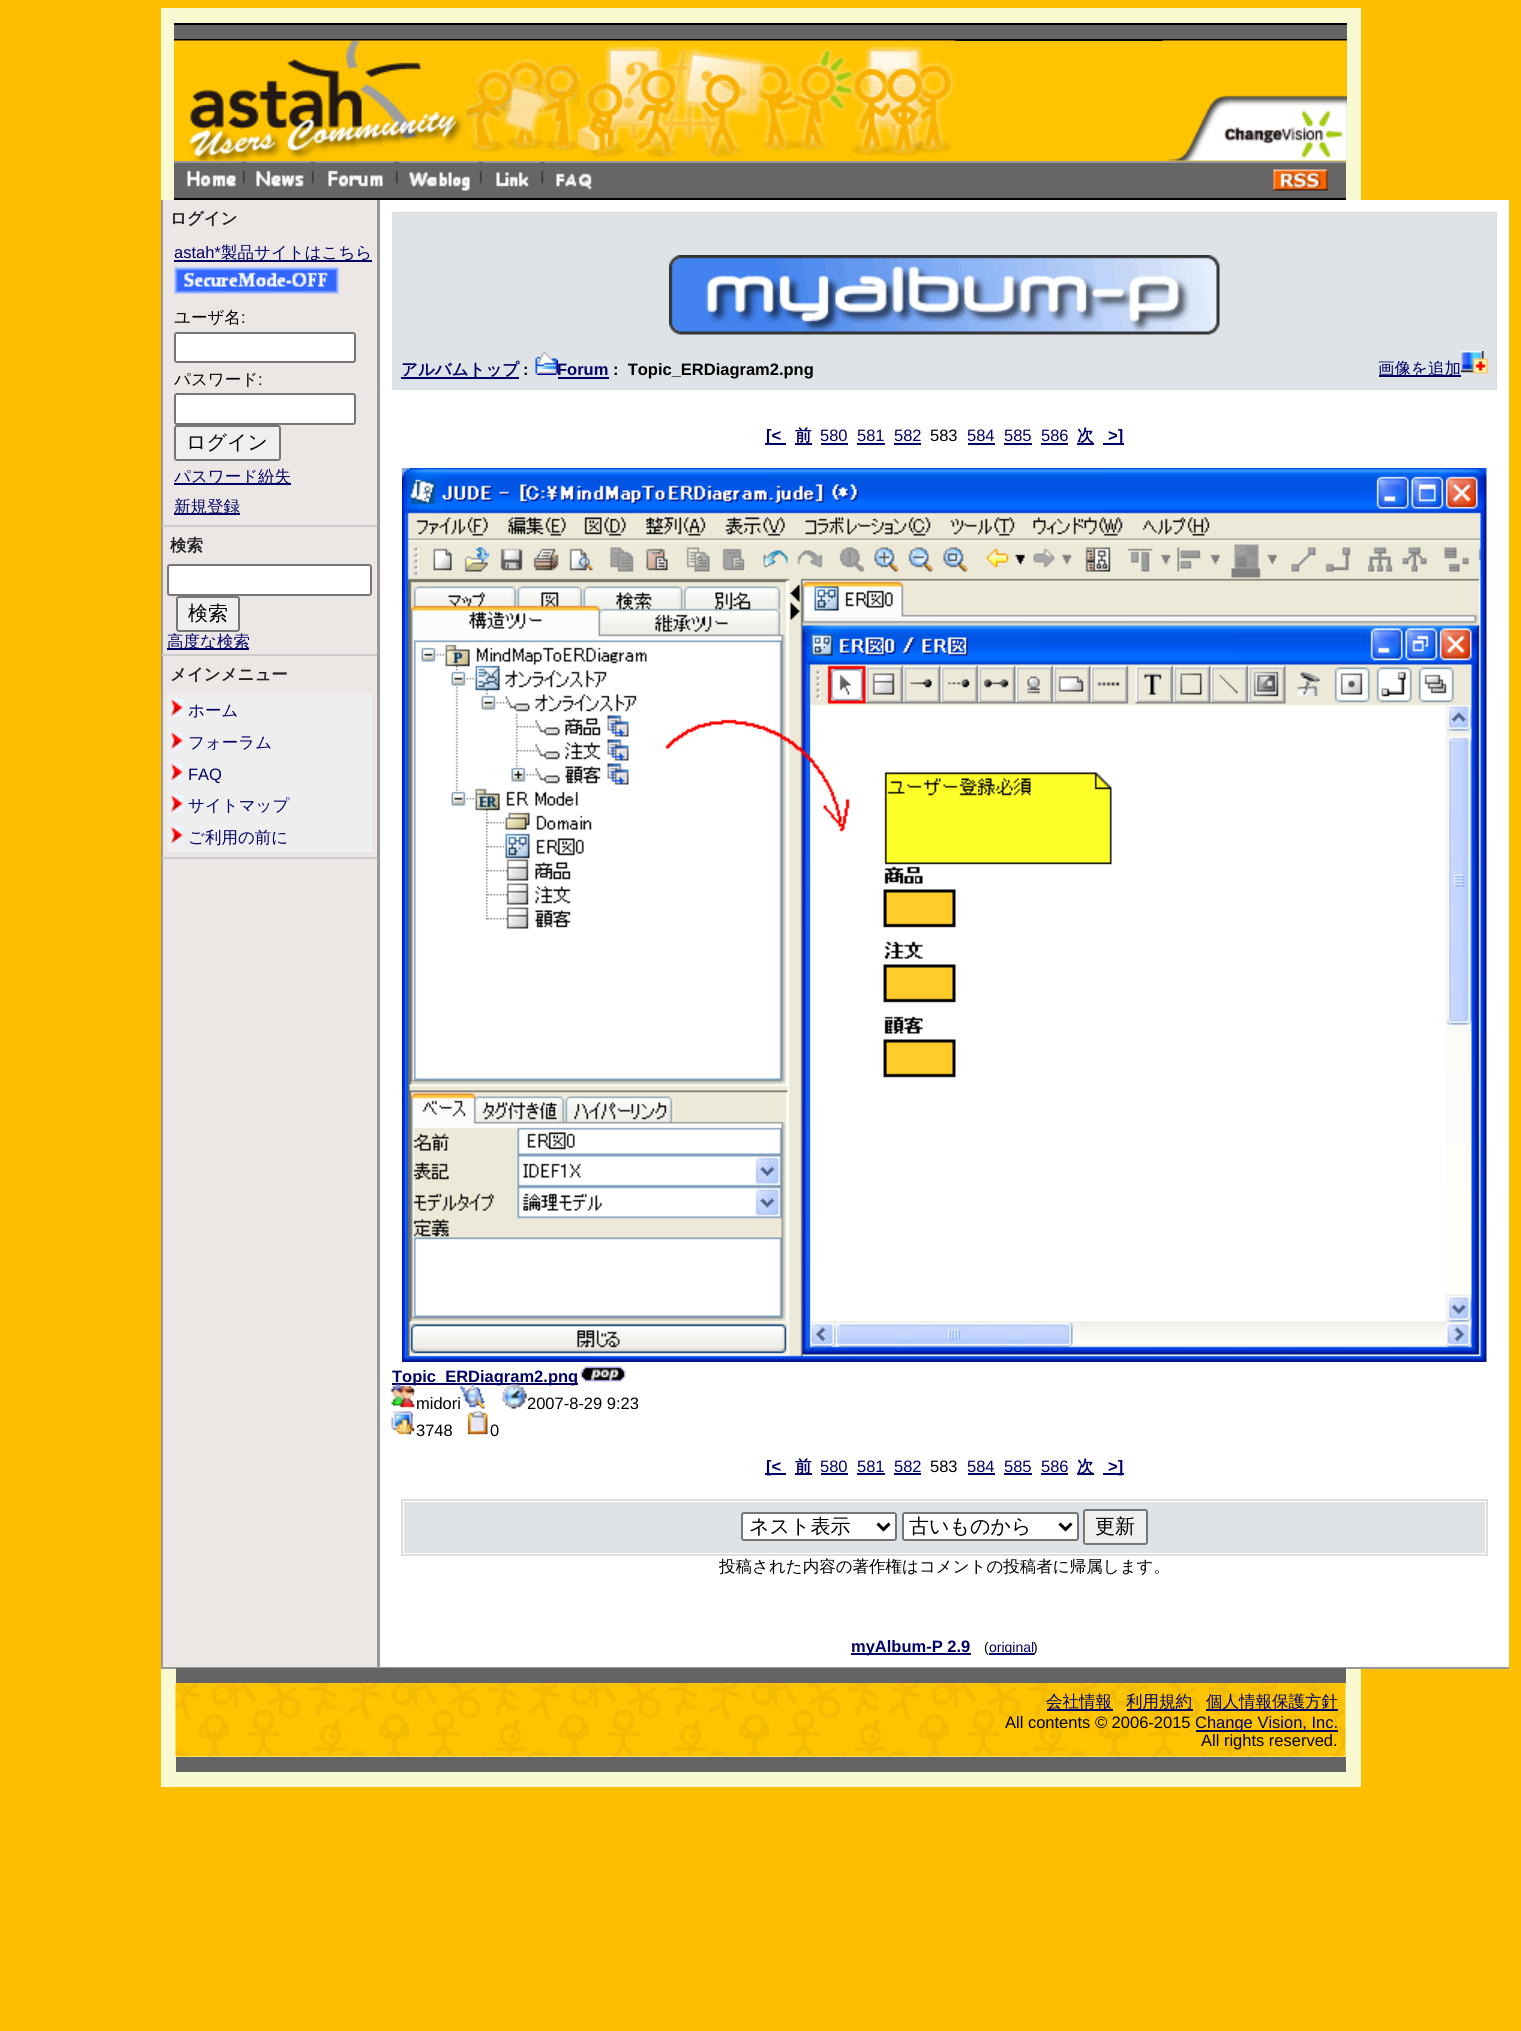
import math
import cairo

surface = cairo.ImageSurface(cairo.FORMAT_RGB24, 1521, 2031)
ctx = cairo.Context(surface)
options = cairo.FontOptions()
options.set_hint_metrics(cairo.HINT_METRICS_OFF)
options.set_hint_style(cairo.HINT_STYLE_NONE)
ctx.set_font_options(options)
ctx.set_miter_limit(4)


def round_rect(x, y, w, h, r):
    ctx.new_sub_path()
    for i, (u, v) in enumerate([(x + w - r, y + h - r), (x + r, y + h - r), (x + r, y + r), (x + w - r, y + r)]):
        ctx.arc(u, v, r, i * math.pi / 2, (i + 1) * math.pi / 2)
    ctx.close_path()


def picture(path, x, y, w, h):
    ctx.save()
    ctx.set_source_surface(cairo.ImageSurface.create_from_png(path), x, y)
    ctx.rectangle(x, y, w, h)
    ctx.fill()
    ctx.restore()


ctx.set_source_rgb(1, 0.745, 0)
ctx.paint()
ctx.set_source_rgb(0.98, 0.98, 0.824)
ctx.rectangle(161, 8, 1200, 1779)
ctx.fill()
ctx.set_source_rgb(0.392, 0.392, 0.392)
ctx.rectangle(174, 25, 1173, 14)
ctx.fill()
ctx.set_source_rgb(0, 0, 0)
ctx.rectangle(174, 23, 1173, 2)
ctx.fill()
ctx.rectangle(174, 39, 1173, 2)
ctx.fill()
ctx.set_source_rgb(1, 0.769, 0)
ctx.rectangle(174, 41, 1173, 120)
ctx.fill()
picture("img1.png", 174, 40, 293, 121)
picture("img2.png", 466, 40, 115, 112)
picture("img3.png", 580, 40, 172, 118)
picture("img4.png", 751, 40, 103, 112)
picture("img5.png", 853, 40, 103, 116)
picture("img6.png", 1162, 40, 185, 121)
ctx.set_source_rgb(0.4, 0.4, 0.4)
ctx.rectangle(174, 163, 1172, 35)
ctx.fill()
ctx.set_source_rgb(0.6, 0.6, 0.6)
ctx.rectangle(174, 161, 1172, 2)
ctx.fill()
ctx.set_source_rgb(0, 0, 0)
ctx.rectangle(174, 198, 1172, 2)
ctx.fill()
picture("img7.png", 187, 170, 49, 17)
picture("img8.png", 241, 162, 5, 22)
picture("img9.png", 256, 170, 48, 17)
picture("img8.png", 310, 162, 5, 22)
picture("img10.png", 328, 170, 55, 17)
picture("img11.png", 394, 162, 5, 22)
picture("img12.png", 409, 172, 61, 19)
picture("img8.png", 478, 162, 5, 22)
picture("img13.png", 496, 172, 33, 15)
picture("img14.png", 540, 162, 5, 22)
picture("img15.png", 556, 173, 36, 17)
picture("img16.png", 1273, 169, 55, 22)
ctx.set_source_rgb(0.922, 0.906, 0.894)
ctx.rectangle(163, 200, 214, 1467)
ctx.fill()
ctx.set_source_rgb(0.6, 0.6, 0.6)
ctx.rectangle(377, 200, 1, 1468)
ctx.fill()
ctx.rectangle(161, 1667, 1348, 2)
ctx.fill()
ctx.rectangle(161, 200, 2, 1468)
ctx.fill()
ctx.select_font_face("WenQuanYi Zen Hei", cairo.FONT_SLANT_NORMAL, cairo.FONT_WEIGHT_BOLD)
ctx.set_font_size(16.5)
ctx.set_source_rgb(0.133, 0.133, 0.133)
ctx.move_to(170, 224)
ctx.show_text("ログイン")
ctx.set_source_rgb(0.8, 0.8, 0.8)
ctx.rectangle(162, 525, 215, 2)
ctx.fill()
ctx.select_font_face("Liberation Sans")
ctx.set_source_rgb(0, 0, 0.4)
ctx.move_to(174, 258)
ctx.show_text("astah*")
ctx.rectangle(174, 260, 198, 2)
ctx.fill()
ctx.select_font_face("WenQuanYi Zen Hei Medium")
ctx.move_to(221, 258)
ctx.show_text("製品サイトはこちら")
picture("img17.png", 174, 267, 165, 27)
ctx.set_source_rgb(0, 0, 0)
ctx.move_to(174, 323)
ctx.show_text("ユーザ名")
ctx.select_font_face("Liberation Sans")
ctx.move_to(241, 323)
ctx.show_text(":")
ctx.set_source_rgb(1, 1, 1)
round_rect(175, 333, 180, 29, 2)
ctx.fill_preserve()
ctx.set_source_rgb(0.463, 0.463, 0.463)
ctx.stroke()
ctx.select_font_face("WenQuanYi Zen Hei Medium")
ctx.set_source_rgb(0, 0, 0)
ctx.move_to(174, 385)
ctx.show_text("パスワード")
ctx.select_font_face("Liberation Sans")
ctx.move_to(258, 385)
ctx.show_text(":")
ctx.set_source_rgb(1, 1, 1)
round_rect(175, 394, 180, 30, 2)
ctx.fill_preserve()
ctx.set_source_rgb(0.463, 0.463, 0.463)
ctx.stroke()
ctx.set_source_rgb(0.937, 0.937, 0.937)
round_rect(175, 426, 105, 34, 2)
ctx.fill_preserve()
ctx.set_source_rgb(0.463, 0.463, 0.463)
ctx.stroke()
ctx.select_font_face("WenQuanYi Zen Hei Medium")
ctx.set_font_size(20)
ctx.set_source_rgb(0, 0, 0)
ctx.move_to(186, 449)
ctx.show_text("ログイン")
ctx.set_source_rgb(0, 0, 0.4)
ctx.rectangle(174, 483, 117, 2)
ctx.fill()
ctx.set_font_size(16.5)
ctx.move_to(174, 482)
ctx.show_text("パスワード紛失")
ctx.rectangle(174, 513, 66, 2)
ctx.fill()
ctx.move_to(174, 512)
ctx.show_text("新規登録")
ctx.select_font_face("WenQuanYi Zen Hei", cairo.FONT_SLANT_NORMAL, cairo.FONT_WEIGHT_BOLD)
ctx.set_source_rgb(0.133, 0.133, 0.133)
ctx.move_to(170, 551)
ctx.show_text("検索")
ctx.set_source_rgb(0.8, 0.8, 0.8)
ctx.rectangle(162, 654, 215, 2)
ctx.fill()
ctx.set_source_rgb(1, 1, 1)
round_rect(168, 565, 203, 30, 2)
ctx.fill_preserve()
ctx.set_source_rgb(0.463, 0.463, 0.463)
ctx.stroke()
ctx.set_source_rgb(0.937, 0.937, 0.937)
round_rect(177, 597, 62, 34, 2)
ctx.fill_preserve()
ctx.set_source_rgb(0.463, 0.463, 0.463)
ctx.stroke()
ctx.select_font_face("WenQuanYi Zen Hei Medium")
ctx.set_font_size(20)
ctx.set_source_rgb(0, 0, 0)
ctx.move_to(188, 620)
ctx.show_text("検索")
ctx.set_source_rgb(0, 0, 0.4)
ctx.rectangle(167, 648, 82, 2)
ctx.fill()
ctx.set_font_size(16.5)
ctx.move_to(167, 647)
ctx.show_text("高度な検索")
ctx.select_font_face("WenQuanYi Zen Hei", cairo.FONT_SLANT_NORMAL, cairo.FONT_WEIGHT_BOLD)
ctx.set_source_rgb(0.133, 0.133, 0.133)
ctx.move_to(170, 680)
ctx.show_text("メインメニュー")
ctx.set_source_rgb(0.8, 0.8, 0.8)
ctx.rectangle(162, 857, 215, 2)
ctx.fill()
ctx.set_source_rgb(0.933, 0.933, 0.933)
ctx.rectangle(167, 693, 205, 159)
ctx.fill()
picture("img18.png", 171, 699, 12, 17)
ctx.select_font_face("WenQuanYi Zen Hei Medium")
ctx.set_source_rgb(0, 0, 0.4)
ctx.move_to(188, 716)
ctx.show_text("ホーム")
picture("img18.png", 171, 732, 12, 17)
ctx.move_to(188, 748)
ctx.show_text("フォーラム")
picture("img19.png", 171, 763, 12, 17)
ctx.select_font_face("Liberation Sans")
ctx.move_to(188, 780)
ctx.show_text("FAQ")
picture("img18.png", 171, 795, 12, 17)
ctx.select_font_face("WenQuanYi Zen Hei Medium")
ctx.move_to(188, 811)
ctx.show_text("サイトマップ")
picture("img19.png", 171, 826, 12, 17)
ctx.move_to(188, 843)
ctx.show_text("ご利用の前に")
ctx.set_source_rgb(1, 1, 1)
ctx.rectangle(380, 200, 1129, 1467)
ctx.fill()
ctx.set_source_rgb(0.6, 0.6, 0.6)
ctx.rectangle(378, 200, 2, 1468)
ctx.fill()
ctx.rectangle(393, 213, 1103, 176)
ctx.set_source_rgb(0.867, 0.867, 0.867)
ctx.stroke()
ctx.set_source_rgb(0.871, 0.89, 0.906)
ctx.rectangle(393, 213, 1103, 176)
ctx.fill()
picture("img20.png", 669, 255, 551, 80)
ctx.set_source_rgb(0, 0, 0.4)
ctx.rectangle(401, 377, 118, 2)
ctx.fill()
ctx.select_font_face("WenQuanYi Zen Hei", cairo.FONT_SLANT_NORMAL, cairo.FONT_WEIGHT_BOLD)
ctx.move_to(401, 375)
ctx.show_text("アルバムトップ")
ctx.select_font_face("Liberation Sans", cairo.FONT_SLANT_NORMAL, cairo.FONT_WEIGHT_BOLD)
ctx.set_source_rgb(0, 0, 0)
ctx.move_to(523, 375)
ctx.show_text(":")
picture("img21.png", 535, 352, 23, 23)
ctx.set_source_rgb(0, 0, 0.4)
ctx.move_to(557, 375)
ctx.show_text("Forum")
ctx.rectangle(558, 377, 51, 2)
ctx.fill()
ctx.set_source_rgb(0, 0, 0)
ctx.move_to(613, 375)
ctx.show_text(":  Topic_ERDiagram2.png")
ctx.set_source_rgb(0, 0, 0.4)
ctx.rectangle(1379, 375, 82, 2)
ctx.fill()
ctx.select_font_face("WenQuanYi Zen Hei Medium")
ctx.move_to(1378, 374)
ctx.show_text("画像を追加")
picture("img22.png", 1461, 351, 27, 23)
ctx.rectangle(765, 443, 21, 2)
ctx.fill()
ctx.select_font_face("Liberation Sans", cairo.FONT_SLANT_NORMAL, cairo.FONT_WEIGHT_BOLD)
ctx.move_to(766, 441)
ctx.show_text("[<")
ctx.rectangle(795, 443, 17, 2)
ctx.fill()
ctx.select_font_face("WenQuanYi Zen Hei", cairo.FONT_SLANT_NORMAL, cairo.FONT_WEIGHT_BOLD)
ctx.move_to(795, 441)
ctx.show_text("前")
ctx.select_font_face("Liberation Sans")
ctx.move_to(820, 441)
ctx.show_text("580")
ctx.rectangle(821, 443, 27, 2)
ctx.fill()
ctx.move_to(857, 441)
ctx.show_text("581")
ctx.rectangle(857, 443, 28, 2)
ctx.fill()
ctx.move_to(894, 441)
ctx.show_text("582")
ctx.rectangle(894, 443, 27, 2)
ctx.fill()
ctx.set_source_rgb(0, 0, 0)
ctx.move_to(930, 441)
ctx.show_text("583")
ctx.set_source_rgb(0, 0, 0.4)
ctx.move_to(967, 441)
ctx.show_text("584")
ctx.rectangle(968, 443, 27, 2)
ctx.fill()
ctx.move_to(1004, 441)
ctx.show_text("585")
ctx.rectangle(1004, 443, 28, 2)
ctx.fill()
ctx.move_to(1041, 441)
ctx.show_text("586")
ctx.rectangle(1041, 443, 27, 2)
ctx.fill()
ctx.rectangle(1077, 443, 17, 2)
ctx.fill()
ctx.select_font_face("WenQuanYi Zen Hei", cairo.FONT_SLANT_NORMAL, cairo.FONT_WEIGHT_BOLD)
ctx.move_to(1077, 441)
ctx.show_text("次")
ctx.rectangle(1103, 443, 21, 2)
ctx.fill()
ctx.select_font_face("Liberation Sans", cairo.FONT_SLANT_NORMAL, cairo.FONT_WEIGHT_BOLD)
ctx.move_to(1108, 441)
ctx.show_text(">]")
picture("img23.png", 402, 468, 1085, 894)
ctx.rectangle(392, 1383, 186, 2)
ctx.fill()
ctx.move_to(392, 1382)
ctx.show_text("Topic_ERDiagram2.png")
picture("img24.png", 580, 1366, 46, 16)
picture("img25.png", 391, 1384, 24, 24)
ctx.select_font_face("Liberation Sans")
ctx.set_source_rgb(0, 0, 0)
ctx.move_to(416, 1409)
ctx.show_text("midori")
picture("img26.png", 460, 1384, 25, 25)
picture("img27.png", 502, 1384, 25, 25)
ctx.move_to(527, 1409)
ctx.show_text("2007-8-29 9:23")
picture("img28.png", 391, 1411, 24, 24)
ctx.move_to(416, 1436)
ctx.show_text("3748")
picture("img29.png", 467, 1411, 21, 24)
ctx.move_to(490, 1436)
ctx.show_text("0")
ctx.set_source_rgb(0, 0, 0.4)
ctx.rectangle(765, 1473, 21, 2)
ctx.fill()
ctx.select_font_face("Liberation Sans", cairo.FONT_SLANT_NORMAL, cairo.FONT_WEIGHT_BOLD)
ctx.move_to(766, 1472)
ctx.show_text("[<")
ctx.rectangle(795, 1473, 17, 2)
ctx.fill()
ctx.select_font_face("WenQuanYi Zen Hei", cairo.FONT_SLANT_NORMAL, cairo.FONT_WEIGHT_BOLD)
ctx.move_to(795, 1472)
ctx.show_text("前")
ctx.select_font_face("Liberation Sans")
ctx.move_to(820, 1472)
ctx.show_text("580")
ctx.rectangle(821, 1473, 27, 2)
ctx.fill()
ctx.move_to(857, 1472)
ctx.show_text("581")
ctx.rectangle(857, 1473, 28, 2)
ctx.fill()
ctx.move_to(894, 1472)
ctx.show_text("582")
ctx.rectangle(894, 1473, 27, 2)
ctx.fill()
ctx.set_source_rgb(0, 0, 0)
ctx.move_to(930, 1472)
ctx.show_text("583")
ctx.set_source_rgb(0, 0, 0.4)
ctx.move_to(967, 1472)
ctx.show_text("584")
ctx.rectangle(968, 1473, 27, 2)
ctx.fill()
ctx.move_to(1004, 1472)
ctx.show_text("585")
ctx.rectangle(1004, 1473, 28, 2)
ctx.fill()
ctx.move_to(1041, 1472)
ctx.show_text("586")
ctx.rectangle(1041, 1473, 27, 2)
ctx.fill()
ctx.rectangle(1077, 1473, 17, 2)
ctx.fill()
ctx.select_font_face("WenQuanYi Zen Hei", cairo.FONT_SLANT_NORMAL, cairo.FONT_WEIGHT_BOLD)
ctx.move_to(1077, 1472)
ctx.show_text("次")
ctx.rectangle(1103, 1473, 21, 2)
ctx.fill()
ctx.select_font_face("Liberation Sans", cairo.FONT_SLANT_NORMAL, cairo.FONT_WEIGHT_BOLD)
ctx.move_to(1108, 1472)
ctx.show_text(">]")
ctx.rectangle(402, 1500, 1085, 55)
ctx.set_source_rgb(0.867, 0.867, 0.867)
ctx.stroke()
ctx.set_source_rgb(0.871, 0.89, 0.906)
ctx.rectangle(404, 1502, 1081, 51)
ctx.fill()
ctx.set_source_rgb(1, 1, 1)
round_rect(742, 1513, 154, 27, 2)
ctx.fill_preserve()
ctx.set_source_rgb(0.463, 0.463, 0.463)
ctx.stroke()
ctx.new_path()
ctx.move_to(877.5, 1523.5)
ctx.line_to(883.5, 1529.5)
ctx.line_to(889.5, 1523.5)
ctx.set_source_rgb(0, 0, 0)
ctx.set_line_width(3)
ctx.stroke()
ctx.select_font_face("WenQuanYi Zen Hei Medium")
ctx.set_font_size(20)
ctx.move_to(749, 1533)
ctx.show_text("ネスト表示")
ctx.set_source_rgb(1, 1, 1)
round_rect(903, 1513, 175, 27, 2)
ctx.fill_preserve()
ctx.set_source_rgb(0.463, 0.463, 0.463)
ctx.set_line_width(2)
ctx.stroke()
ctx.new_path()
ctx.move_to(1059.5, 1523.5)
ctx.line_to(1065.5, 1529.5)
ctx.line_to(1071.5, 1523.5)
ctx.set_source_rgb(0, 0, 0)
ctx.set_line_width(3)
ctx.stroke()
ctx.move_to(909, 1533)
ctx.show_text("古いものから")
ctx.set_source_rgb(0.937, 0.937, 0.937)
round_rect(1084, 1510, 63, 34, 2)
ctx.fill_preserve()
ctx.set_source_rgb(0.463, 0.463, 0.463)
ctx.set_line_width(2)
ctx.stroke()
ctx.set_source_rgb(0, 0, 0)
ctx.move_to(1095, 1533)
ctx.show_text("更新")
ctx.set_font_size(16.5)
ctx.move_to(719, 1572)
ctx.show_text("投稿された内容の著作権はコメントの投稿者に帰属します。")
ctx.set_source_rgb(0, 0, 0.4)
ctx.rectangle(851, 1653, 120, 2)
ctx.fill()
ctx.select_font_face("Liberation Sans", cairo.FONT_SLANT_NORMAL, cairo.FONT_WEIGHT_BOLD)
ctx.move_to(851, 1652)
ctx.show_text("myAlbum-P 2.9")
ctx.select_font_face("Liberation Sans")
ctx.set_font_size(14)
ctx.set_source_rgb(0, 0, 0)
ctx.move_to(984, 1652)
ctx.show_text("(")
ctx.set_source_rgb(0, 0, 0.4)
ctx.rectangle(989, 1653, 45, 2)
ctx.fill()
ctx.move_to(989, 1652)
ctx.show_text("original")
ctx.set_source_rgb(0, 0, 0)
ctx.move_to(1033, 1652)
ctx.show_text(")")
ctx.set_source_rgb(0.392, 0.392, 0.392)
ctx.rectangle(176, 1668, 1170, 15)
ctx.fill()
picture("img30.png", 175, 1683, 1171, 74)
ctx.set_source_rgb(0, 0, 0.4)
ctx.rectangle(1047, 1709, 66, 2)
ctx.fill()
ctx.select_font_face("WenQuanYi Zen Hei Medium")
ctx.set_font_size(16.5)
ctx.move_to(1046, 1707)
ctx.show_text("会社情報")
ctx.rectangle(1127, 1709, 66, 2)
ctx.fill()
ctx.move_to(1126, 1707)
ctx.show_text("利用規約")
ctx.rectangle(1206, 1709, 132, 2)
ctx.fill()
ctx.move_to(1206, 1707)
ctx.show_text("個人情報保護方針")
ctx.select_font_face("Liberation Sans")
ctx.set_source_rgb(0, 0, 0)
ctx.move_to(1005, 1728)
ctx.show_text("All contents © 2006-2015")
ctx.set_source_rgb(0, 0, 0.4)
ctx.rectangle(1196, 1730, 142, 2)
ctx.fill()
ctx.move_to(1195, 1728)
ctx.show_text("Change Vision, Inc.")
ctx.set_source_rgb(0, 0, 0)
ctx.move_to(1201, 1746)
ctx.show_text("All rights reserved.")
ctx.set_source_rgb(0.392, 0.392, 0.392)
ctx.rectangle(176, 1757, 1170, 15)
ctx.fill()
surface.write_to_png("page.png")
